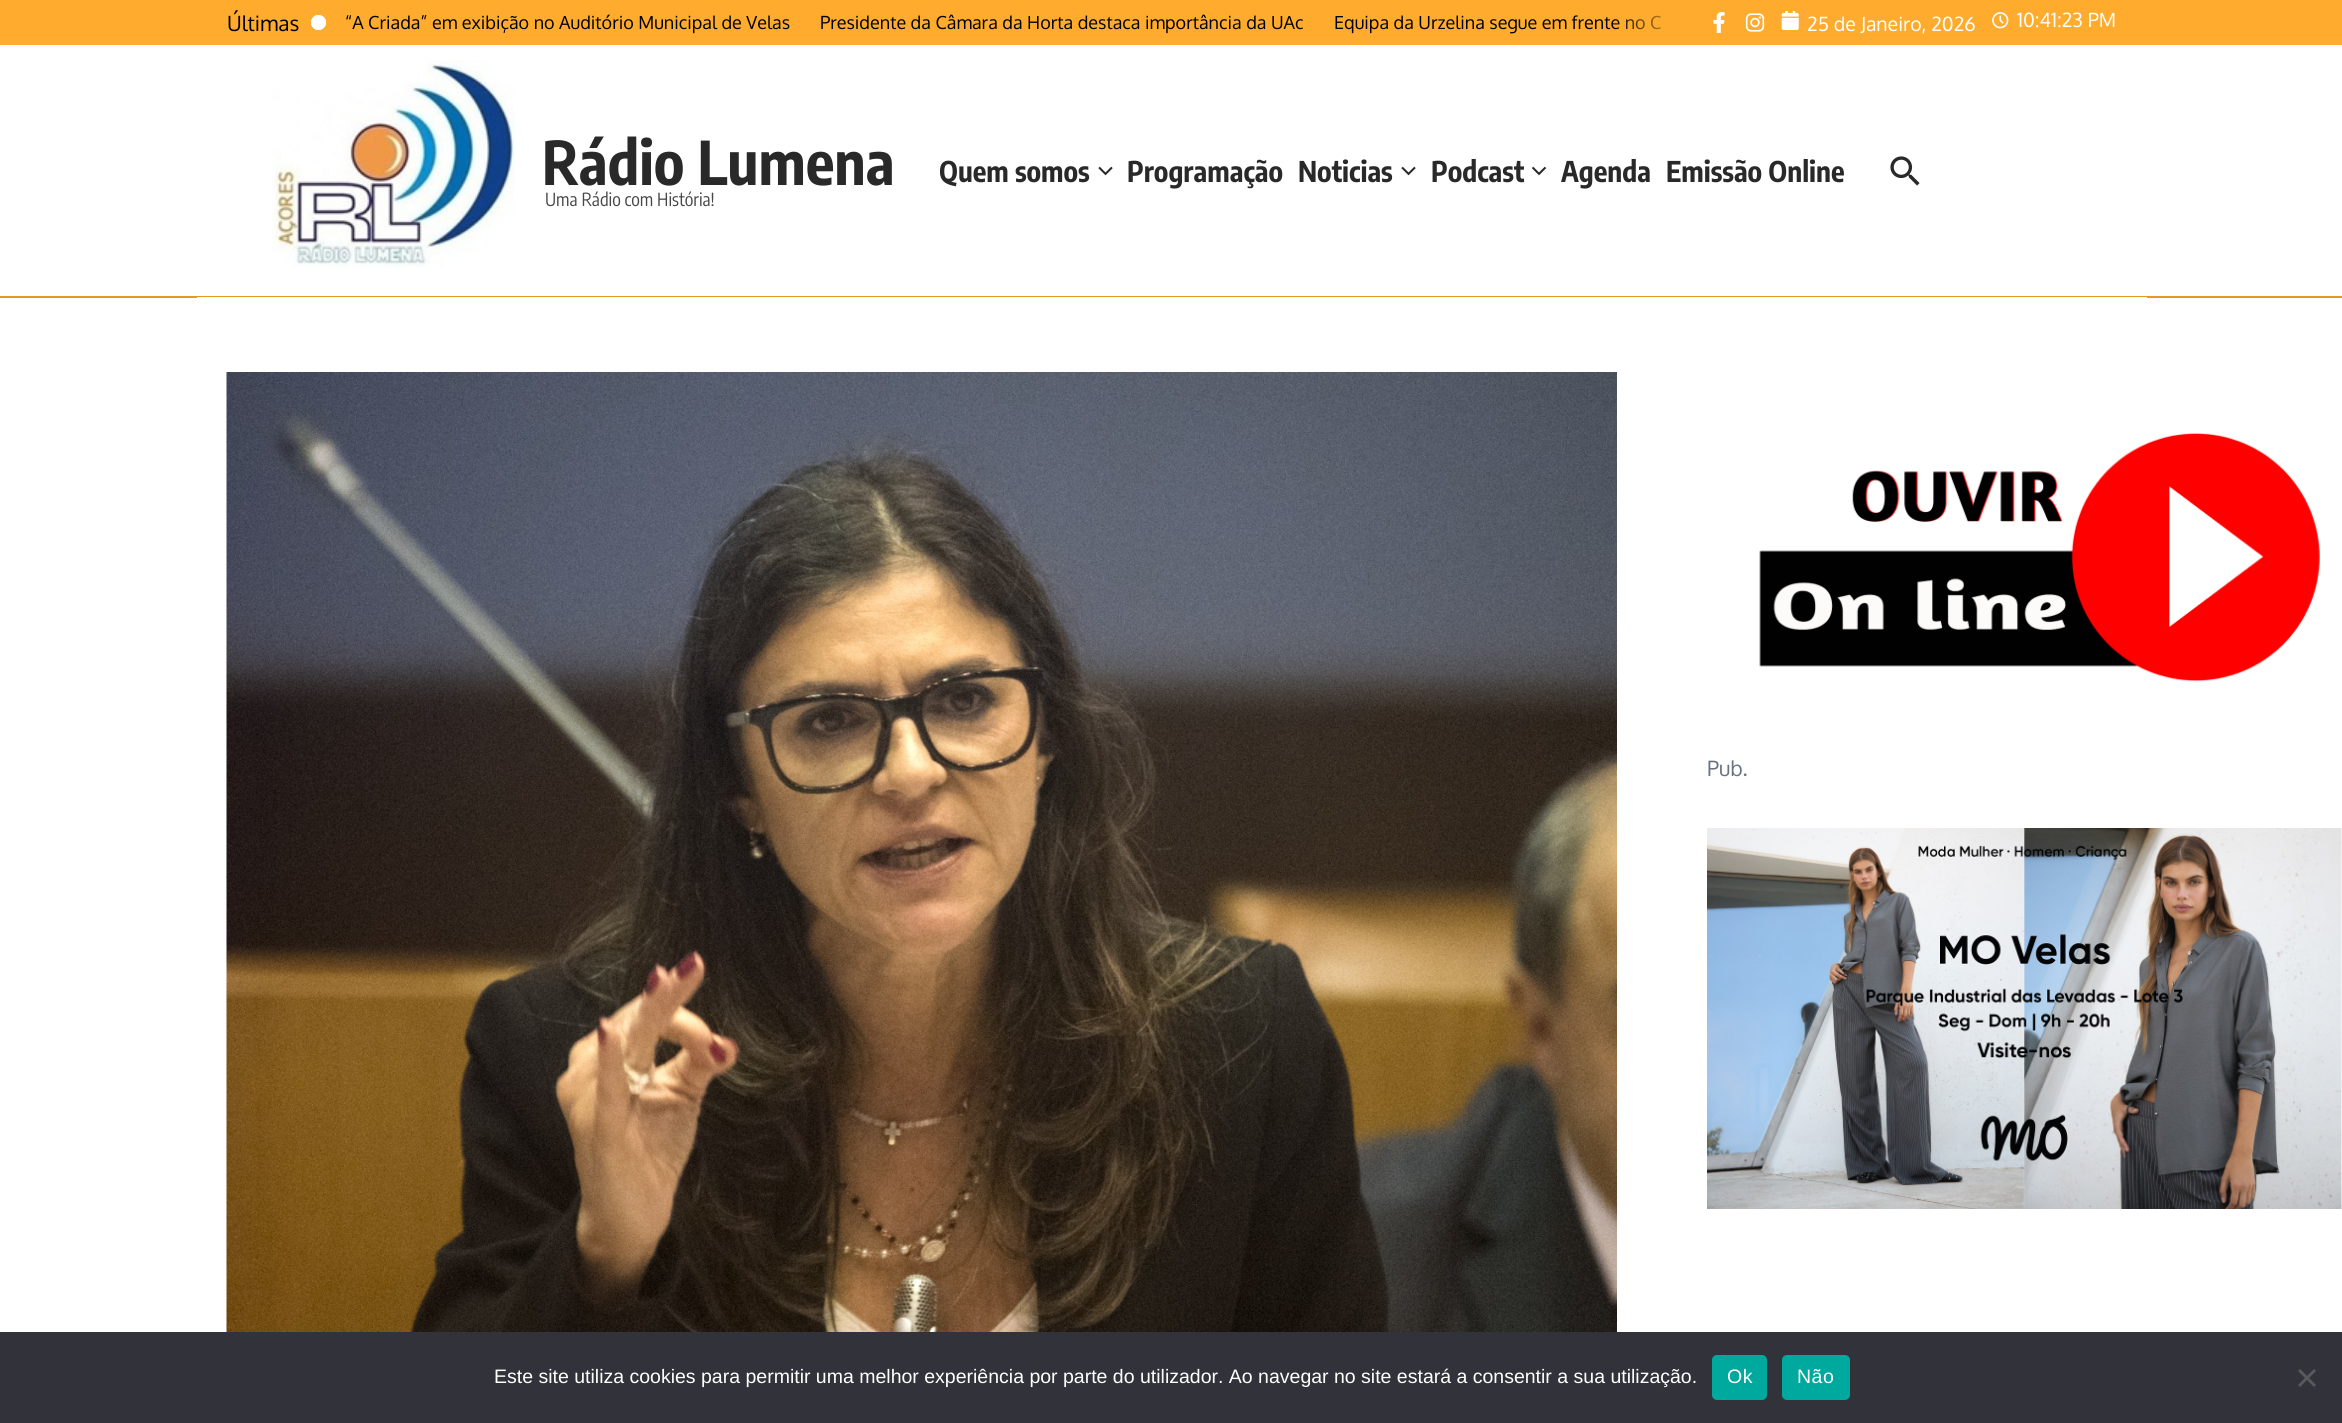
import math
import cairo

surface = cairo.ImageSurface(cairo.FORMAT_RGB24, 2342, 1423)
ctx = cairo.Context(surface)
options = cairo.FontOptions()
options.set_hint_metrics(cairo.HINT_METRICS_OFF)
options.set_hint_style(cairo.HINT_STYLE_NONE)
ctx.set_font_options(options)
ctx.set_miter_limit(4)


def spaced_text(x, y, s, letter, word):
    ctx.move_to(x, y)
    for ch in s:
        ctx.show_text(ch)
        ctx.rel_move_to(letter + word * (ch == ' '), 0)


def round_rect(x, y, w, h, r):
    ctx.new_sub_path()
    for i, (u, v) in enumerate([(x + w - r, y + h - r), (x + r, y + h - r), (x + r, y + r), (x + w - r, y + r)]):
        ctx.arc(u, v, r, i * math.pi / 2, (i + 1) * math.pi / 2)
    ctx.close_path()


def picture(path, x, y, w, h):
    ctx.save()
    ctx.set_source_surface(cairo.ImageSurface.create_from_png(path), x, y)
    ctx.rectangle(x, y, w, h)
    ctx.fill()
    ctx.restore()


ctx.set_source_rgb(1, 1, 1)
ctx.paint()
ctx.set_source_rgb(1, 0.671, 0.18)
ctx.rectangle(0, 0, 2342, 45)
ctx.fill()
ctx.select_font_face("Oxygen")
ctx.set_font_size(21)
ctx.set_source_rgb(0, 0, 0)
ctx.move_to(227, 31)
ctx.show_text("Últimas")
ctx.set_source_rgb(1, 1, 1)
ctx.new_path()
ctx.arc(318.5, 22.5, 6.5, 0, 2 * math.pi)
ctx.fill_preserve()
ctx.stroke()
ctx.arc(318.5, 22.5, 6.5, 0, 2 * math.pi)
ctx.stroke()
ctx.set_font_size(18)
ctx.set_source_rgb(0, 0, 0)
ctx.move_to(345, 29)
ctx.show_text("“A Criada” em exibição no Auditório Municipal de Velas")
ctx.move_to(820, 29)
ctx.show_text("Presidente da Câmara da Horta destaca importância da UAc")
ctx.move_to(1334, 29)
ctx.show_text("Equipa da Urzelina segue em frente no C")
gradient = cairo.LinearGradient(1611, 23, 1686, 22)
gradient.add_color_stop_rgba(0, 1, 0.671, 0.18, 0)
gradient.add_color_stop_rgba(1, 1, 0.671, 0.18, 1)
ctx.set_source(gradient)
ctx.rectangle(1612, 15, 49, 15)
ctx.fill()
picture("img1.png", 1713, 12, 12, 21)
picture("img2.png", 1745, 13, 20, 19)
picture("img3.png", 1781, 11, 18, 19)
ctx.set_font_size(19.5)
ctx.set_source_rgb(1, 1, 1)
ctx.move_to(1807, 31)
ctx.show_text("25 de Janeiro, 2026")
picture("img4.png", 1992, 12, 17, 17)
ctx.move_to(2017, 27)
ctx.show_text("10:41:23 PM")
ctx.set_source_rgb(0.902, 0.596, 0.133)
ctx.rectangle(0, 296, 2342, 2)
ctx.fill()
picture("img5.png", 272, 60, 243, 208)
ctx.select_font_face("Encode Sans Condensed", cairo.FONT_SLANT_NORMAL, cairo.FONT_WEIGHT_BOLD)
ctx.set_font_size(60)
ctx.set_source_rgb(0.161, 0.161, 0.161)
ctx.move_to(542, 185)
ctx.show_text("Rádio Lumena")
ctx.select_font_face("Encode Sans Condensed")
ctx.set_font_size(18)
ctx.set_source_rgb(0.282, 0.275, 0.275)
ctx.move_to(545, 206)
ctx.show_text("Uma Rádio com História!")
ctx.select_font_face("Encode Sans Condensed", cairo.FONT_SLANT_NORMAL, cairo.FONT_WEIGHT_BOLD)
ctx.set_font_size(28.5)
ctx.set_source_rgb(0.161, 0.161, 0.161)
ctx.move_to(939, 182)
ctx.show_text("Quem somos")
picture("img6.png", 1098, 166, 15, 10)
ctx.move_to(1127, 182)
ctx.show_text("Programação")
ctx.move_to(1298, 182)
ctx.show_text("Noticias")
picture("img6.png", 1401, 166, 15, 10)
ctx.move_to(1431, 182)
ctx.show_text("Podcast")
picture("img7.png", 1532, 166, 15, 10)
ctx.move_to(1561, 182)
ctx.show_text("Agenda")
ctx.move_to(1666, 182)
ctx.show_text("Emissão Online")
picture("img8.png", 1890, 156, 30, 30)
ctx.set_source_rgb(1, 1, 1)
ctx.rectangle(197, 297, 1950, 1)
ctx.fill()
picture("img9.png", 226, 372, 1391, 960)
picture("img10.png", 1759, 432, 561, 250)
ctx.select_font_face("Oxygen")
ctx.set_font_size(21)
ctx.set_source_rgb(0.404, 0.451, 0.494)
ctx.move_to(1707, 776)
ctx.show_text("Pub.")
picture("img11.png", 1707, 828, 635, 381)
ctx.set_source_rgb(0.196, 0.196, 0.227)
ctx.rectangle(0, 1332, 2342, 91)
ctx.fill()
ctx.select_font_face("Liberation Sans")
ctx.set_font_size(19.5)
ctx.set_source_rgb(1, 1, 1)
ctx.move_to(494, 1383)
ctx.show_text("Este site utiliza cookies para permitir uma melhor experiência por parte do utilizador. Ao navegar no site estará a consentir a sua utilização.")
ctx.set_source_rgb(0, 0.663, 0.616)
round_rect(1712, 1355, 55, 45, 5)
ctx.fill()
ctx.set_source_rgb(1, 1, 1)
spaced_text(1727, 1383, "Ok", 0.5, 0)
ctx.set_source_rgb(0, 0.663, 0.616)
round_rect(1782, 1355, 68, 45, 5)
ctx.fill()
ctx.set_source_rgb(1, 1, 1)
spaced_text(1797, 1383, "Não", 0.5, 0)
ctx.set_source_rgb(0.349, 0.349, 0.365)
ctx.new_path()
ctx.move_to(2314, 1369)
ctx.line_to(2316, 1371)
ctx.line_to(2300, 1387)
ctx.line_to(2298, 1385)
ctx.close_path()
ctx.fill()
ctx.new_path()
ctx.move_to(2298, 1371)
ctx.line_to(2300, 1369)
ctx.line_to(2316, 1385)
ctx.line_to(2314, 1387)
ctx.close_path()
ctx.fill()
surface.write_to_png("page.png")
